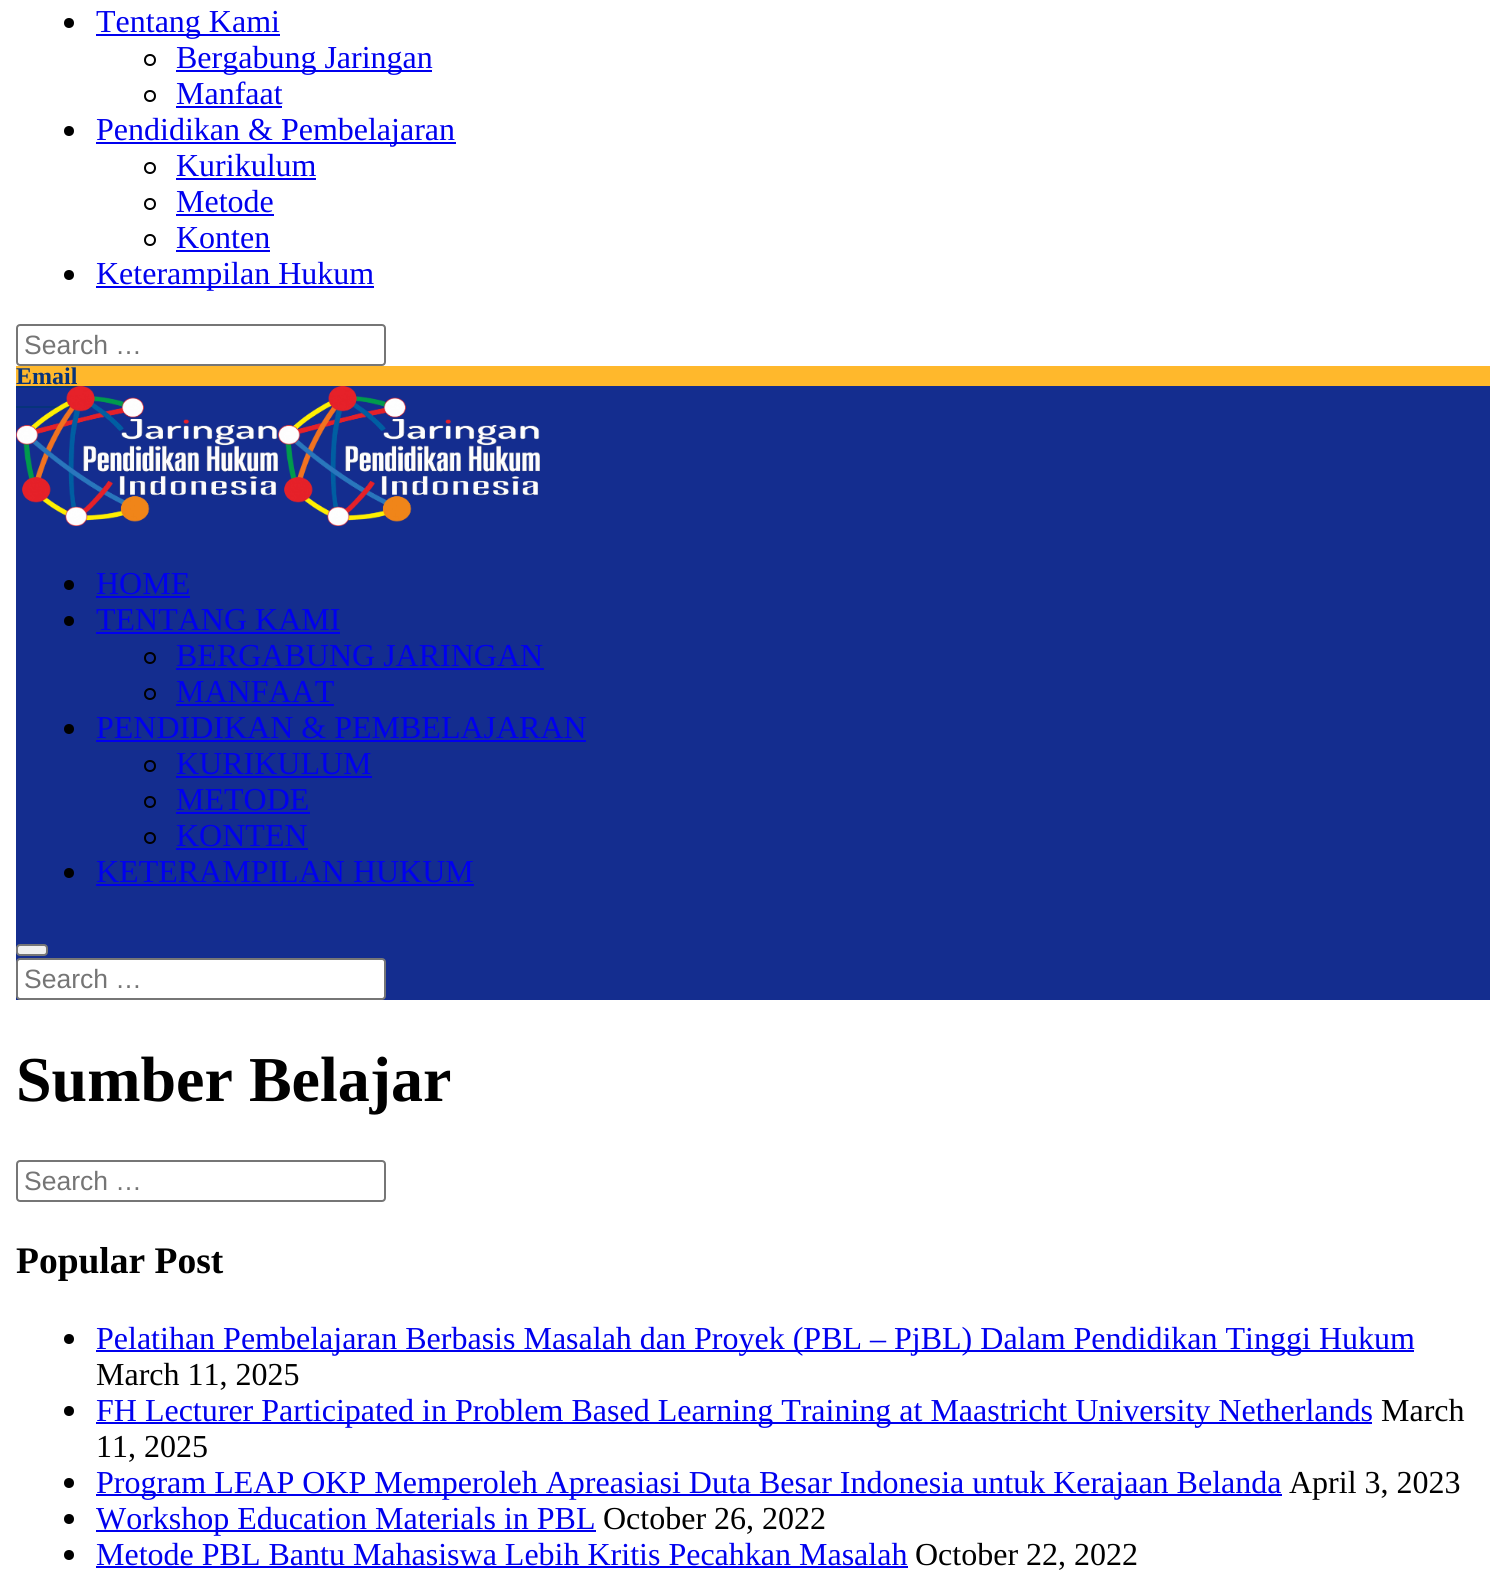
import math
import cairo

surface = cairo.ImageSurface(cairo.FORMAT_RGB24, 1506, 1581)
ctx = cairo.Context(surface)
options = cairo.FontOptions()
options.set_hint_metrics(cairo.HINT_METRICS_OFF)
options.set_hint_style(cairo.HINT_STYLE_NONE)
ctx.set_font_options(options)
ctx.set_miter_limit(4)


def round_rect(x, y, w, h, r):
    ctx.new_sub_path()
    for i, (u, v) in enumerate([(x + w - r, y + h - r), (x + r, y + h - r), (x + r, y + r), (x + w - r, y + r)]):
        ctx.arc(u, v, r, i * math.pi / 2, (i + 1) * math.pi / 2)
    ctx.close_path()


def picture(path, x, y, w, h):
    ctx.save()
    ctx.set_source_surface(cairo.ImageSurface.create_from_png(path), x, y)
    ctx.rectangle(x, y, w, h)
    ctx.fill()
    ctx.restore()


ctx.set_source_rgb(1, 1, 1)
ctx.paint()
ctx.set_source_rgb(0, 0, 0)
ctx.arc(69, 23, 5, 0, 2 * math.pi)
ctx.fill()
ctx.set_source_rgb(0, 0, 0.933)
ctx.rectangle(96, 34, 184, 2)
ctx.fill()
ctx.select_font_face("Liberation Serif")
ctx.set_font_size(32)
ctx.move_to(96, 32)
ctx.show_text("Tentang Kami")
ctx.new_path()
ctx.arc(150, 60, 5, 0, 2 * math.pi)
ctx.set_source_rgb(0, 0, 0)
ctx.stroke()
ctx.set_source_rgb(0, 0, 0.933)
ctx.rectangle(176, 70, 256, 2)
ctx.fill()
ctx.move_to(176, 68)
ctx.show_text("Bergabung Jaringan")
ctx.new_path()
ctx.arc(150, 96, 5, 0, 2 * math.pi)
ctx.set_source_rgb(0, 0, 0)
ctx.stroke()
ctx.set_source_rgb(0, 0, 0.933)
ctx.move_to(176, 104)
ctx.show_text("Manfaat")
ctx.rectangle(176, 106, 106, 2)
ctx.fill()
ctx.set_source_rgb(0, 0, 0)
ctx.arc(69, 131, 5, 0, 2 * math.pi)
ctx.fill()
ctx.set_source_rgb(0, 0, 0.933)
ctx.rectangle(96, 142, 360, 2)
ctx.fill()
ctx.move_to(96, 140)
ctx.show_text("Pendidikan & Pembelajaran")
ctx.new_path()
ctx.arc(150, 168, 5, 0, 2 * math.pi)
ctx.set_source_rgb(0, 0, 0)
ctx.stroke()
ctx.set_source_rgb(0, 0, 0.933)
ctx.move_to(176, 176)
ctx.show_text("Kurikulum")
ctx.rectangle(176, 178, 140, 2)
ctx.fill()
ctx.arc(150, 204, 5, 0, 2 * math.pi)
ctx.set_source_rgb(0, 0, 0)
ctx.stroke()
ctx.set_source_rgb(0, 0, 0.933)
ctx.move_to(176, 212)
ctx.show_text("Metode")
ctx.rectangle(176, 214, 98, 2)
ctx.fill()
ctx.arc(150, 240, 5, 0, 2 * math.pi)
ctx.set_source_rgb(0, 0, 0)
ctx.stroke()
ctx.set_source_rgb(0, 0, 0.933)
ctx.move_to(176, 248)
ctx.show_text("Konten")
ctx.rectangle(176, 250, 94, 2)
ctx.fill()
ctx.set_source_rgb(0, 0, 0)
ctx.arc(69, 275, 5, 0, 2 * math.pi)
ctx.fill()
ctx.set_source_rgb(0, 0, 0.933)
ctx.rectangle(96, 286, 278, 2)
ctx.fill()
ctx.move_to(96, 284)
ctx.show_text("Keterampilan Hukum")
round_rect(17, 325, 368, 40, 3)
ctx.set_source_rgb(0.463, 0.463, 0.463)
ctx.stroke()
ctx.select_font_face("Liberation Sans")
ctx.set_font_size(26.5)
ctx.set_source_rgb(0.459, 0.459, 0.459)
ctx.move_to(24, 354)
ctx.show_text("Search …")
ctx.set_source_rgb(1, 0.722, 0.173)
ctx.rectangle(16, 366, 1474, 20)
ctx.fill()
ctx.select_font_face("Liberation Serif", cairo.FONT_SLANT_NORMAL, cairo.FONT_WEIGHT_BOLD)
ctx.set_font_size(24)
ctx.set_source_rgb(0.024, 0.2, 0.482)
ctx.move_to(16, 384)
ctx.show_text("Email")
ctx.set_source_rgb(0.082, 0.176, 0.561)
ctx.rectangle(16, 386, 1474, 614)
ctx.fill()
ctx.set_source_rgb(0.024, 0.2, 0.482)
ctx.rectangle(16, 386, 62, 2)
ctx.fill()
ctx.rectangle(16, 406, 78, 2)
ctx.fill()
picture("img1.png", 16, 386, 262, 140)
picture("img2.png", 278, 386, 262, 140)
ctx.set_source_rgb(0, 0, 0)
ctx.arc(69, 585, 5, 0, 2 * math.pi)
ctx.fill()
ctx.select_font_face("Liberation Serif")
ctx.set_font_size(32)
ctx.set_source_rgb(0, 0, 0.933)
ctx.move_to(96, 594)
ctx.show_text("HOME")
ctx.rectangle(96, 596, 94, 2)
ctx.fill()
ctx.set_source_rgb(0, 0, 0)
ctx.arc(69, 621, 5, 0, 2 * math.pi)
ctx.fill()
ctx.set_source_rgb(0, 0, 0.933)
ctx.move_to(96, 630)
ctx.show_text("TENTANG KAMI")
ctx.rectangle(96, 632, 244, 2)
ctx.fill()
ctx.arc(150, 658, 5, 0, 2 * math.pi)
ctx.set_source_rgb(0, 0, 0)
ctx.stroke()
ctx.set_source_rgb(0, 0, 0.933)
ctx.move_to(176, 666)
ctx.show_text("BERGABUNG JARINGAN")
ctx.rectangle(176, 668, 368, 2)
ctx.fill()
ctx.arc(150, 694, 5, 0, 2 * math.pi)
ctx.set_source_rgb(0, 0, 0)
ctx.stroke()
ctx.set_source_rgb(0, 0, 0.933)
ctx.move_to(176, 702)
ctx.show_text("MANFAAT")
ctx.rectangle(176, 704, 158, 2)
ctx.fill()
ctx.set_source_rgb(0, 0, 0)
ctx.arc(69, 729, 5, 0, 2 * math.pi)
ctx.fill()
ctx.set_source_rgb(0, 0, 0.933)
ctx.move_to(96, 738)
ctx.show_text("PENDIDIKAN & PEMBELAJARAN")
ctx.rectangle(96, 740, 490, 2)
ctx.fill()
ctx.arc(150, 766, 5, 0, 2 * math.pi)
ctx.set_source_rgb(0, 0, 0)
ctx.stroke()
ctx.set_source_rgb(0, 0, 0.933)
ctx.move_to(176, 774)
ctx.show_text("KURIKULUM")
ctx.rectangle(176, 776, 196, 2)
ctx.fill()
ctx.arc(150, 802, 5, 0, 2 * math.pi)
ctx.set_source_rgb(0, 0, 0)
ctx.stroke()
ctx.set_source_rgb(0, 0, 0.933)
ctx.move_to(176, 810)
ctx.show_text("METODE")
ctx.rectangle(176, 812, 134, 2)
ctx.fill()
ctx.arc(150, 838, 5, 0, 2 * math.pi)
ctx.set_source_rgb(0, 0, 0)
ctx.stroke()
ctx.set_source_rgb(0, 0, 0.933)
ctx.move_to(176, 846)
ctx.show_text("KONTEN")
ctx.rectangle(176, 848, 132, 2)
ctx.fill()
ctx.set_source_rgb(0, 0, 0)
ctx.arc(69, 873, 5, 0, 2 * math.pi)
ctx.fill()
ctx.set_source_rgb(0, 0, 0.933)
ctx.move_to(96, 882)
ctx.show_text("KETERAMPILAN HUKUM")
ctx.rectangle(96, 884, 378, 2)
ctx.fill()
ctx.set_source_rgb(0.937, 0.937, 0.937)
round_rect(17, 945, 30, 10, 3)
ctx.fill_preserve()
ctx.set_source_rgb(0.463, 0.463, 0.463)
ctx.stroke()
ctx.set_source_rgb(1, 1, 1)
round_rect(17, 959, 368, 40, 3)
ctx.fill_preserve()
ctx.set_source_rgb(0.463, 0.463, 0.463)
ctx.stroke()
ctx.select_font_face("Liberation Sans")
ctx.set_font_size(26.5)
ctx.set_source_rgb(0.459, 0.459, 0.459)
ctx.move_to(24, 988)
ctx.show_text("Search …")
ctx.select_font_face("Liberation Serif", cairo.FONT_SLANT_NORMAL, cairo.FONT_WEIGHT_BOLD)
ctx.set_font_size(64)
ctx.set_source_rgb(0, 0, 0)
ctx.move_to(16, 1101)
ctx.show_text("Sumber Belajar")
round_rect(17, 1161, 368, 40, 3)
ctx.set_source_rgb(0.463, 0.463, 0.463)
ctx.stroke()
ctx.select_font_face("Liberation Sans")
ctx.set_font_size(26.5)
ctx.set_source_rgb(0.459, 0.459, 0.459)
ctx.move_to(24, 1190)
ctx.show_text("Search …")
ctx.select_font_face("Liberation Serif", cairo.FONT_SLANT_NORMAL, cairo.FONT_WEIGHT_BOLD)
ctx.set_font_size(37.5)
ctx.set_source_rgb(0, 0, 0)
ctx.move_to(16, 1273)
ctx.show_text("Popular Post")
ctx.new_path()
ctx.arc(69, 1339, 5, 0, 2 * math.pi)
ctx.fill()
ctx.set_source_rgb(0, 0, 0.933)
ctx.rectangle(96, 1350, 1318, 2)
ctx.fill()
ctx.select_font_face("Liberation Serif")
ctx.set_font_size(32)
ctx.move_to(96, 1349)
ctx.show_text("Pelatihan Pembelajaran Berbasis Masalah dan Proyek (PBL – PjBL) Dalam Pendidikan Tinggi Hukum")
ctx.set_source_rgb(0, 0, 0)
ctx.move_to(96, 1385)
ctx.show_text("March 11, 2025")
ctx.new_path()
ctx.arc(69, 1411, 5, 0, 2 * math.pi)
ctx.fill()
ctx.set_source_rgb(0, 0, 0.933)
ctx.rectangle(96, 1422, 1276, 2)
ctx.fill()
ctx.move_to(96, 1421)
ctx.show_text("FH Lecturer Participated in Problem Based Learning Training at Maastricht University Netherlands")
ctx.set_source_rgb(0, 0, 0)
ctx.move_to(1381, 1421)
ctx.show_text("March")
ctx.move_to(96, 1457)
ctx.show_text("11, 2025")
ctx.new_path()
ctx.arc(69, 1483, 5, 0, 2 * math.pi)
ctx.fill()
ctx.set_source_rgb(0, 0, 0.933)
ctx.rectangle(96, 1494, 1186, 2)
ctx.fill()
ctx.move_to(96, 1493)
ctx.show_text("Program LEAP OKP Memperoleh Apreasiasi Duta Besar Indonesia untuk Kerajaan Belanda")
ctx.set_source_rgb(0, 0, 0)
ctx.move_to(1289, 1493)
ctx.show_text("April 3, 2023")
ctx.new_path()
ctx.arc(69, 1519, 5, 0, 2 * math.pi)
ctx.fill()
ctx.set_source_rgb(0, 0, 0.933)
ctx.rectangle(96, 1530, 500, 2)
ctx.fill()
ctx.move_to(96, 1529)
ctx.show_text("Workshop Education Materials in PBL")
ctx.set_source_rgb(0, 0, 0)
ctx.move_to(603, 1529)
ctx.show_text("October 26, 2022")
ctx.new_path()
ctx.arc(69, 1555, 5, 0, 2 * math.pi)
ctx.fill()
ctx.set_source_rgb(0, 0, 0.933)
ctx.move_to(96, 1565)
ctx.show_text("Metode PBL Bantu Mahasiswa Lebih Kritis Pecahkan Masalah")
ctx.rectangle(96, 1566, 812, 2)
ctx.fill()
ctx.set_source_rgb(0, 0, 0)
ctx.move_to(915, 1565)
ctx.show_text("October 22, 2022")
surface.write_to_png("page.png")
